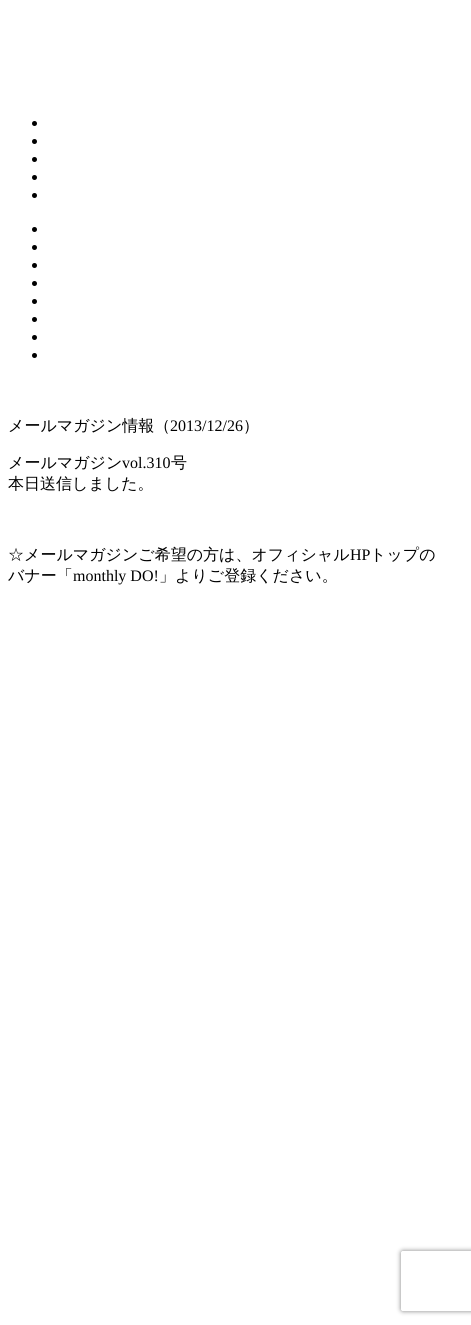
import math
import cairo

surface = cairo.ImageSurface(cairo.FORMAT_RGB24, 471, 1325)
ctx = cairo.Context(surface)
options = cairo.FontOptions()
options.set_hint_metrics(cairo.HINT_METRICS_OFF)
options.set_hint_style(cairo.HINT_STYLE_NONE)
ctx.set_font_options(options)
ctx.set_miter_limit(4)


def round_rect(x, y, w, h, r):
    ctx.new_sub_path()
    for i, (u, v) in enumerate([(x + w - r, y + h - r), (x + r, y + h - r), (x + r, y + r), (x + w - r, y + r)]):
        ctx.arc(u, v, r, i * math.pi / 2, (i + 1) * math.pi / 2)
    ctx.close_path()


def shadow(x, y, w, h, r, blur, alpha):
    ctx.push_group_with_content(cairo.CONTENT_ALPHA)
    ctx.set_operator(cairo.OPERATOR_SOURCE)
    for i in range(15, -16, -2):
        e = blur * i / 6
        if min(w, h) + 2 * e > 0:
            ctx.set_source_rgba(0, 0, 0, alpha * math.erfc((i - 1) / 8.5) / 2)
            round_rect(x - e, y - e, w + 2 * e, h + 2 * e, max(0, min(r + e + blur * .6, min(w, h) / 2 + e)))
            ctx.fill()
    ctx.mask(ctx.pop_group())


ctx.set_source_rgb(1, 1, 1)
ctx.paint()
ctx.set_source_rgb(0, 0, 0)
ctx.arc(34.5, 123.5, 2.5, 0, 2 * math.pi)
ctx.fill()
ctx.arc(34.5, 141.5, 2.5, 0, 2 * math.pi)
ctx.fill()
ctx.arc(34.5, 159.5, 2.5, 0, 2 * math.pi)
ctx.fill()
ctx.arc(34.5, 177.5, 2.5, 0, 2 * math.pi)
ctx.fill()
ctx.arc(34.5, 195.5, 2.5, 0, 2 * math.pi)
ctx.fill()
ctx.arc(34.5, 229.5, 2.5, 0, 2 * math.pi)
ctx.fill()
ctx.arc(34.5, 247.5, 2.5, 0, 2 * math.pi)
ctx.fill()
ctx.arc(34.5, 265.5, 2.5, 0, 2 * math.pi)
ctx.fill()
ctx.arc(34.5, 283.5, 2.5, 0, 2 * math.pi)
ctx.fill()
ctx.arc(34.5, 301.5, 2.5, 0, 2 * math.pi)
ctx.fill()
ctx.arc(34.5, 319.5, 2.5, 0, 2 * math.pi)
ctx.fill()
ctx.arc(34.5, 337.5, 2.5, 0, 2 * math.pi)
ctx.fill()
ctx.arc(34.5, 355.5, 2.5, 0, 2 * math.pi)
ctx.fill()
ctx.select_font_face("WenQuanYi Zen Hei Medium")
ctx.set_font_size(16)
ctx.move_to(8, 431)
ctx.show_text("メールマガジン情報（")
ctx.select_font_face("Liberation Serif")
ctx.move_to(170, 431)
ctx.show_text("2013/12/26")
ctx.select_font_face("WenQuanYi Zen Hei Medium")
ctx.move_to(243, 431)
ctx.show_text("）")
ctx.move_to(8, 468)
ctx.show_text("メールマガジン")
ctx.select_font_face("Liberation Serif")
ctx.move_to(122, 468)
ctx.show_text("vol.310")
ctx.select_font_face("WenQuanYi Zen Hei Medium")
ctx.move_to(171, 468)
ctx.show_text("号")
ctx.move_to(8, 489)
ctx.show_text("本日送信しました。")
ctx.move_to(8, 560)
ctx.show_text("☆メールマガジンご希望の方は、オフィシャル")
ctx.select_font_face("Liberation Serif")
ctx.move_to(350, 560)
ctx.show_text("HP")
ctx.select_font_face("WenQuanYi Zen Hei Medium")
ctx.move_to(370, 560)
ctx.show_text("トップの")
ctx.move_to(8, 581)
ctx.show_text("バナー「")
ctx.select_font_face("Liberation Serif")
ctx.move_to(73, 581)
ctx.show_text("monthly DO!")
ctx.select_font_face("WenQuanYi Zen Hei Medium")
ctx.move_to(159, 581)
ctx.show_text("」よりご登録ください。")
ctx.save()
ctx.set_fill_rule(cairo.FILL_RULE_EVEN_ODD)
ctx.new_path()
ctx.move_to(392, 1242)
ctx.line_to(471, 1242)
ctx.line_to(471, 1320)
ctx.line_to(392, 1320)
ctx.close_path()
ctx.move_to(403, 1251)
ctx.line_to(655, 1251)
ctx.curve_to(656, 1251, 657, 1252, 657, 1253)
ctx.line_to(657, 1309)
ctx.curve_to(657, 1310, 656, 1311, 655, 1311)
ctx.line_to(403, 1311)
ctx.curve_to(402, 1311, 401, 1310, 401, 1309)
ctx.line_to(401, 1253)
ctx.curve_to(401, 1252, 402, 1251, 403, 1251)
ctx.close_path()
ctx.clip()
ctx.set_source_rgb(0.502, 0.502, 0.502)
shadow(401, 1251, 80, 60, 2, 2.5, 1)
ctx.restore()
surface.write_to_png("page.png")
